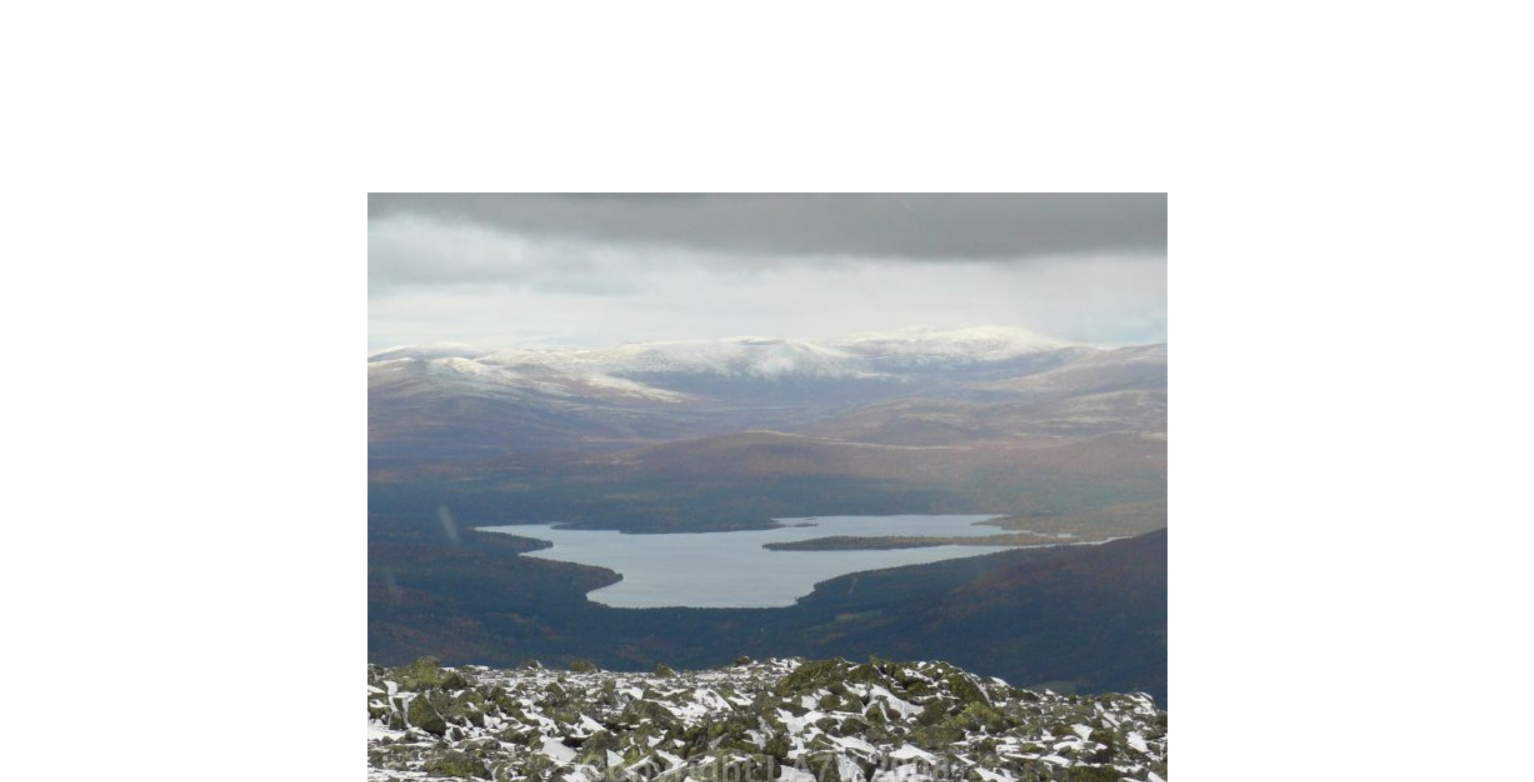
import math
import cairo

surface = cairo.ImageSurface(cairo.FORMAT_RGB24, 1534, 782)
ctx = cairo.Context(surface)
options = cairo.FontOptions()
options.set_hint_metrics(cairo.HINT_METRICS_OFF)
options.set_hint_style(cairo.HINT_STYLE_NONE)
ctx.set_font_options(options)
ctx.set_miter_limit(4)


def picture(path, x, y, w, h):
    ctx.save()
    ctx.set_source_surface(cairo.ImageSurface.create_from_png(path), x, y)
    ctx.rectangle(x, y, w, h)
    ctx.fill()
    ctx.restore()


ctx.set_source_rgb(1, 1, 1)
ctx.paint()
picture("img1.png", 367, 192, 801, 590)
surface.write_to_png("page.png")
